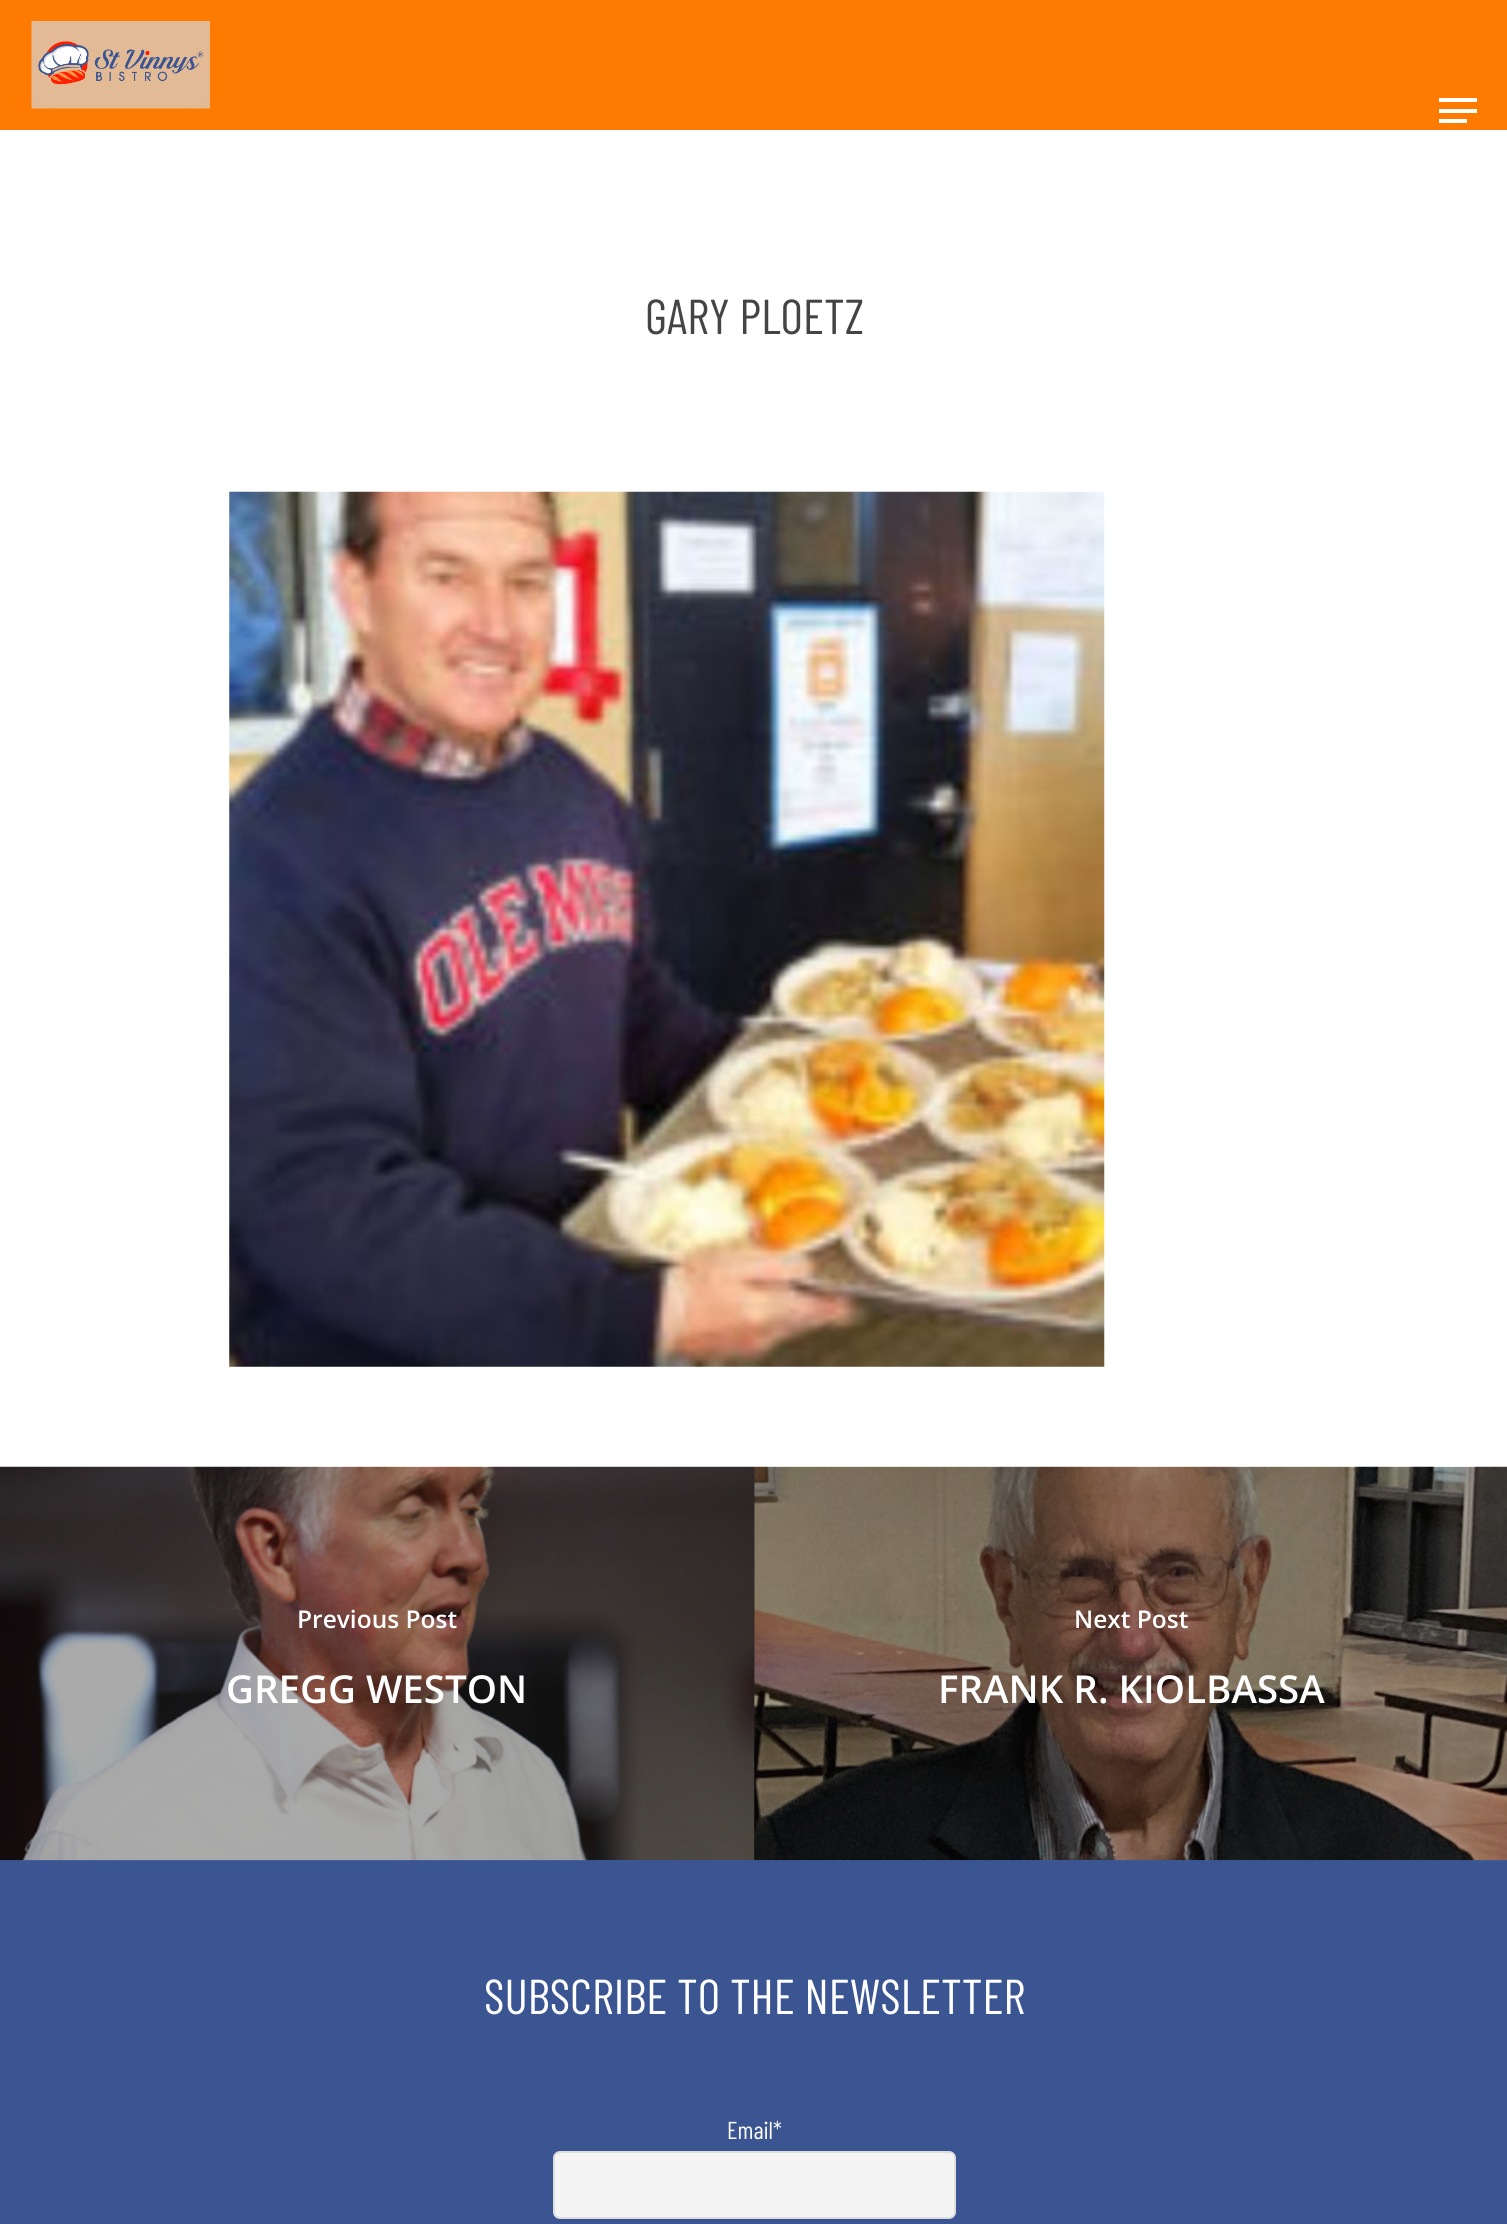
import math
import cairo

surface = cairo.ImageSurface(cairo.FORMAT_RGB24, 1507, 2224)
ctx = cairo.Context(surface)
options = cairo.FontOptions()
options.set_hint_metrics(cairo.HINT_METRICS_OFF)
options.set_hint_style(cairo.HINT_STYLE_NONE)
ctx.set_font_options(options)
ctx.set_miter_limit(4)


def round_rect(x, y, w, h, r):
    ctx.new_sub_path()
    for i, (u, v) in enumerate([(x + w - r, y + h - r), (x + r, y + h - r), (x + r, y + r), (x + w - r, y + r)]):
        ctx.arc(u, v, r, i * math.pi / 2, (i + 1) * math.pi / 2)
    ctx.close_path()


def picture(path, x, y, w, h):
    ctx.save()
    ctx.set_source_surface(cairo.ImageSurface.create_from_png(path), x, y)
    ctx.rectangle(x, y, w, h)
    ctx.fill()
    ctx.restore()


ctx.set_source_rgb(1, 1, 1)
ctx.paint()
ctx.set_source_rgb(1, 0.478, 0.004)
ctx.rectangle(0, 0, 1507, 130)
ctx.fill()
picture("img1.png", 31, 21, 179, 88)
ctx.set_source_rgb(1, 1, 1)
ctx.rectangle(1439, 98, 38, 4)
ctx.fill()
ctx.rectangle(1439, 119, 28, 4)
ctx.fill()
ctx.rectangle(1439, 109, 38, 4)
ctx.fill()
ctx.select_font_face("Barlow Condensed")
ctx.set_font_size(49)
ctx.set_source_rgb(0.267, 0.267, 0.267)
ctx.move_to(645, 334)
ctx.show_text("GARY PLOETZ")
picture("img2.png", 229, 491, 876, 876)
ctx.set_source_rgb(0.149, 0.149, 0.149)
ctx.rectangle(754, 1467, 1, 393)
ctx.fill()
ctx.set_source_rgb(0.231, 0.333, 0.576)
ctx.rectangle(0, 1860, 1507, 364)
ctx.fill()
picture("img3.png", 0, 1466, 754, 395)
ctx.select_font_face("Open Sans SemiBold")
ctx.set_font_size(24.5)
ctx.set_source_rgb(1, 1, 1)
ctx.move_to(297, 1628)
ctx.show_text("Previous Post")
ctx.set_font_size(38.5)
ctx.move_to(226, 1703)
ctx.show_text("GREGG WESTON")
picture("img4.png", 754, 1466, 753, 395)
ctx.set_font_size(24.5)
ctx.move_to(1074, 1628)
ctx.show_text("Next Post")
ctx.set_font_size(38.5)
ctx.move_to(938, 1703)
ctx.show_text("FRANK R. KIOLBASSA")
ctx.select_font_face("Barlow Condensed")
ctx.set_font_size(49)
ctx.move_to(484, 2014)
ctx.show_text("SUBSCRIBE TO THE NEWSLETTER")
ctx.set_font_size(24.5)
ctx.set_source_rgb(0.992, 0.988, 0.973)
ctx.move_to(727, 2139)
ctx.show_text("Email*")
ctx.set_source_rgb(0.957, 0.957, 0.957)
round_rect(554, 2152, 401, 66, 6)
ctx.fill_preserve()
ctx.set_source_rgb(0.867, 0.867, 0.867)
ctx.stroke()
surface.write_to_png("page.png")
